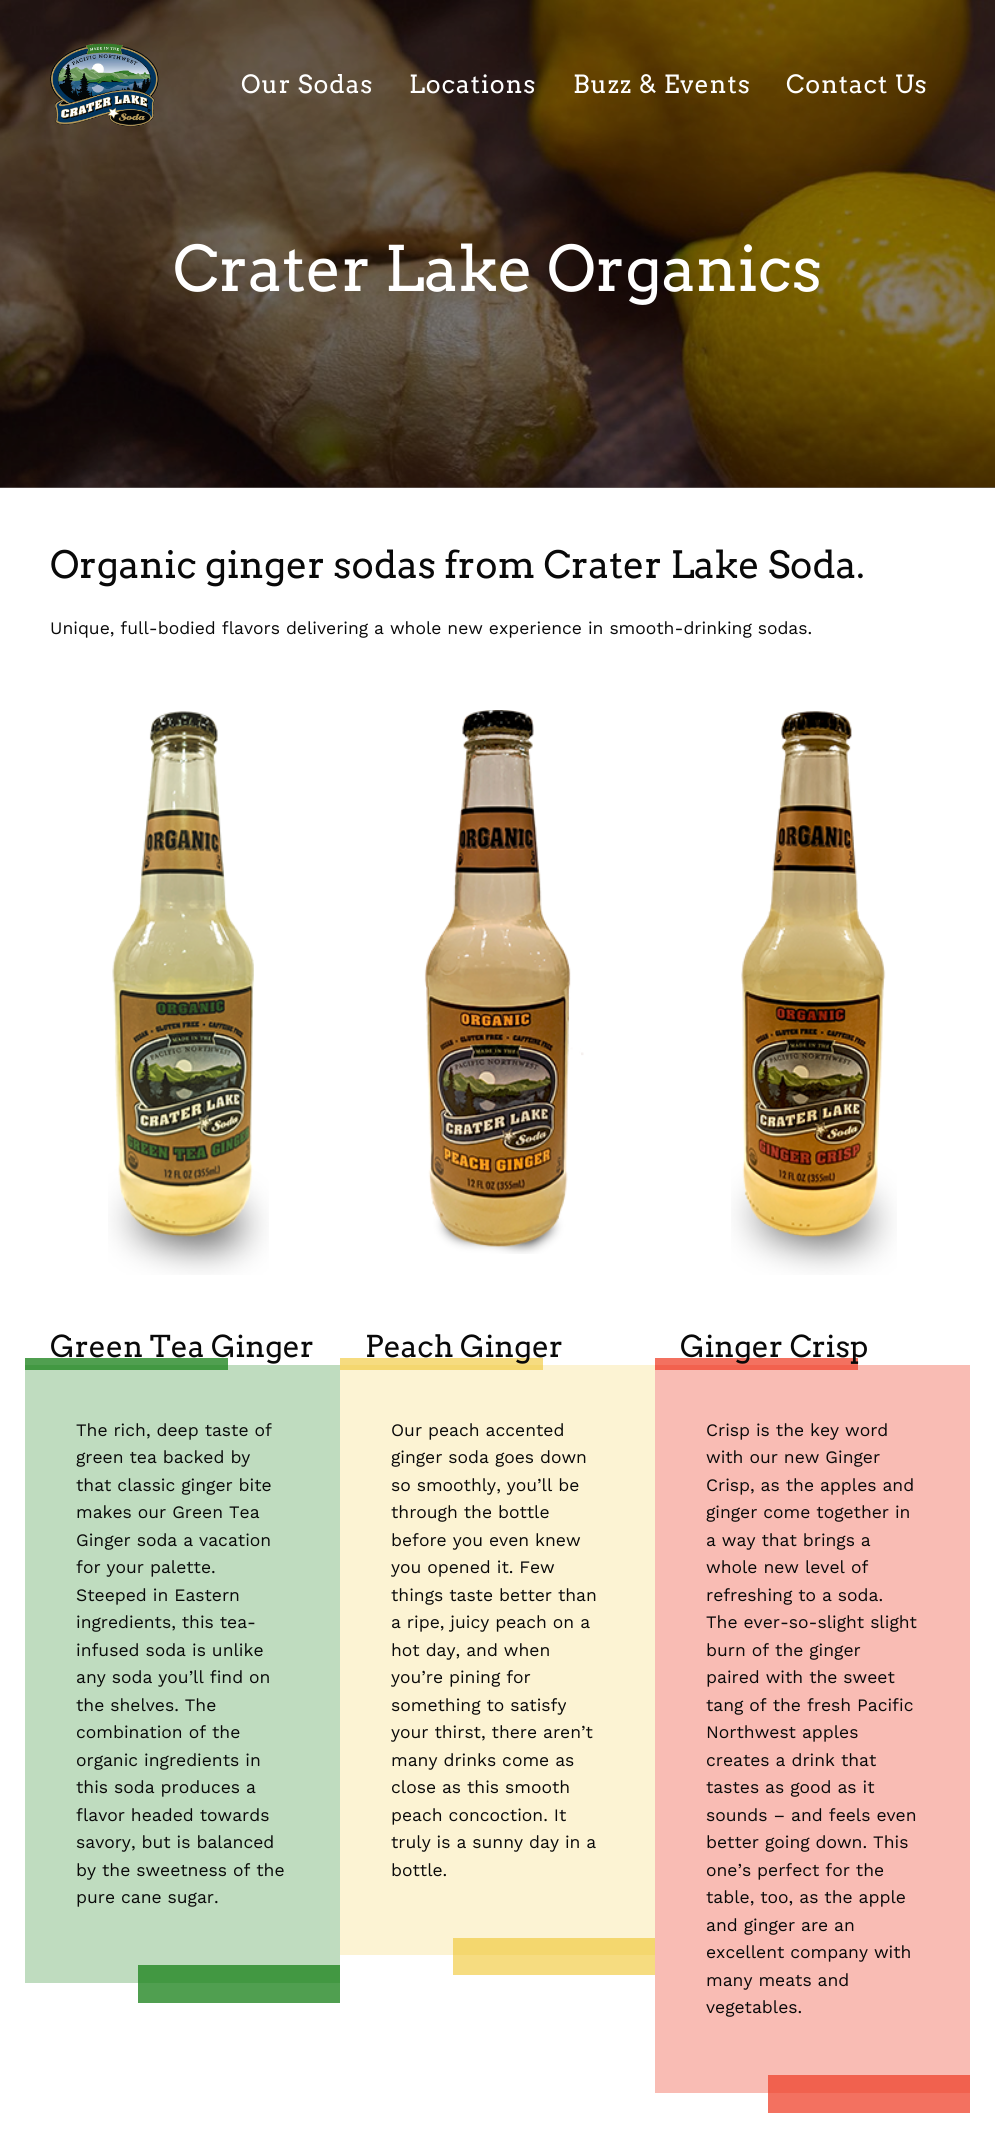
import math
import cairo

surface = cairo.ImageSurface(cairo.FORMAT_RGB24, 995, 2140)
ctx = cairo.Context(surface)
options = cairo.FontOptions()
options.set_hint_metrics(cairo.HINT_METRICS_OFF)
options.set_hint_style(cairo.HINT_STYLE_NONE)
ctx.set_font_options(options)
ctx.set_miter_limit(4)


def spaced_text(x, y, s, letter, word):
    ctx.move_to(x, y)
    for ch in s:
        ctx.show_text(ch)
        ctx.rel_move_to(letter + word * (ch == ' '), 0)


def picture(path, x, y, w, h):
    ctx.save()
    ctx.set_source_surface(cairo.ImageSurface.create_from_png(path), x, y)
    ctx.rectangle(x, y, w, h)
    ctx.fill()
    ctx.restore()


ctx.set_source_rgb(0.494, 0.475, 0.475)
ctx.paint()
picture("img2.png", 0, 0, 995, 488)
picture("img1.png", 50, 43, 109, 84)
ctx.select_font_face("Arvo")
ctx.set_font_size(25)
ctx.set_source_rgb(1, 1, 1)
spaced_text(241, 93, "Our Sodas", 0.9, 0)
spaced_text(409, 93, "Locations", 0.9, 0)
spaced_text(573, 93, "Buzz & Events", 0.9, 0)
spaced_text(786, 93, "Contact Us", 0.9, 0)
ctx.set_font_size(62.5)
ctx.move_to(173, 291)
ctx.show_text("Crater Lake Organics")
ctx.rectangle(0, 488, 995, 1652)
ctx.fill()
ctx.set_source_rgb(0.953, 0.443, 0.376)
ctx.rectangle(768, 2093, 202, 20)
ctx.fill()
ctx.set_source_rgb(0.976, 0.737, 0.706)
ctx.rectangle(655, 1365, 315, 728)
ctx.fill()
ctx.set_source_rgb(0.945, 0.38, 0.306)
ctx.rectangle(768, 2075, 202, 18)
ctx.fill()
ctx.set_source_rgb(0.961, 0.863, 0.502)
ctx.rectangle(453, 1955, 202, 20)
ctx.fill()
ctx.set_source_rgb(0.988, 0.953, 0.827)
ctx.rectangle(340, 1365, 315, 590)
ctx.fill()
ctx.set_source_rgb(0.957, 0.843, 0.431)
ctx.rectangle(453, 1938, 202, 17)
ctx.fill()
ctx.set_source_rgb(0.314, 0.624, 0.314)
ctx.rectangle(138, 1983, 202, 20)
ctx.fill()
ctx.set_source_rgb(0.749, 0.863, 0.749)
ctx.rectangle(25, 1365, 315, 618)
ctx.fill()
ctx.set_source_rgb(0.259, 0.596, 0.259)
ctx.rectangle(138, 1965, 202, 18)
ctx.fill()
ctx.set_font_size(37.5)
ctx.set_source_rgb(0.039, 0.039, 0.039)
ctx.move_to(50, 578)
ctx.show_text("Organic ginger sodas from Crater Lake Soda.")
ctx.select_font_face("Work Sans")
ctx.set_font_size(17.5)
ctx.move_to(50, 634)
ctx.show_text("Unique, full-bodied flavors delivering a whole new experience in smooth-drinking sodas.")
picture("img3.png", 108, 711, 161, 564)
ctx.set_source_rgb(0.314, 0.624, 0.314)
ctx.rectangle(25, 1358, 203, 7)
ctx.fill()
ctx.select_font_face("Arvo")
ctx.set_font_size(30)
ctx.set_source_rgb(0.039, 0.039, 0.039)
ctx.move_to(50, 1357)
ctx.show_text("Green Tea Ginger")
ctx.set_source_rgb(0.259, 0.596, 0.259)
ctx.rectangle(25, 1365, 203, 5)
ctx.fill()
ctx.select_font_face("Work Sans")
ctx.set_font_size(17.5)
ctx.set_source_rgb(0.039, 0.039, 0.039)
ctx.move_to(76, 1436)
ctx.show_text("The rich, deep taste of")
ctx.move_to(76, 1463)
ctx.show_text("green tea backed by")
ctx.move_to(76, 1491)
ctx.show_text("that classic ginger bite")
ctx.move_to(76, 1518)
ctx.show_text("makes our Green Tea")
ctx.move_to(76, 1546)
ctx.show_text("Ginger soda a vacation")
ctx.move_to(76, 1573)
ctx.show_text("for your palette.")
ctx.move_to(76, 1601)
ctx.show_text("Steeped in Eastern")
ctx.move_to(76, 1628)
ctx.show_text("ingredients, this tea-")
ctx.move_to(76, 1656)
ctx.show_text("infused soda is unlike")
ctx.move_to(76, 1683)
ctx.show_text("any soda you’ll find on")
ctx.move_to(76, 1711)
ctx.show_text("the shelves. The")
ctx.move_to(76, 1738)
ctx.show_text("combination of the")
ctx.move_to(76, 1766)
ctx.show_text("organic ingredients in")
ctx.move_to(76, 1793)
ctx.show_text("this soda produces a")
ctx.move_to(76, 1821)
ctx.show_text("flavor headed towards")
ctx.move_to(76, 1848)
ctx.show_text("savory, but is balanced")
ctx.move_to(76, 1876)
ctx.show_text("by the sweetness of the")
ctx.move_to(76, 1903)
ctx.show_text("pure cane sugar.")
picture("img4.png", 424, 710, 160, 544)
ctx.set_source_rgb(0.961, 0.863, 0.502)
ctx.rectangle(340, 1358, 203, 7)
ctx.fill()
ctx.select_font_face("Arvo")
ctx.set_font_size(30)
ctx.set_source_rgb(0.039, 0.039, 0.039)
ctx.move_to(365, 1357)
ctx.show_text("Peach Ginger")
ctx.set_source_rgb(0.957, 0.843, 0.435)
ctx.rectangle(340, 1365, 203, 5)
ctx.fill()
ctx.select_font_face("Work Sans")
ctx.set_font_size(17.5)
ctx.set_source_rgb(0.039, 0.039, 0.039)
ctx.move_to(391, 1436)
ctx.show_text("Our peach accented")
ctx.move_to(391, 1463)
ctx.show_text("ginger soda goes down")
ctx.move_to(391, 1491)
ctx.show_text("so smoothly, you’ll be")
ctx.move_to(391, 1518)
ctx.show_text("through the bottle")
ctx.move_to(391, 1546)
ctx.show_text("before you even knew")
ctx.move_to(391, 1573)
ctx.show_text("you opened it. Few")
ctx.move_to(391, 1601)
ctx.show_text("things taste better than")
ctx.move_to(391, 1628)
ctx.show_text("a ripe, juicy peach on a")
ctx.move_to(391, 1656)
ctx.show_text("hot day, and when")
ctx.move_to(391, 1683)
ctx.show_text("you’re pining for")
ctx.move_to(391, 1711)
ctx.show_text("something to satisfy")
ctx.move_to(391, 1738)
ctx.show_text("your thirst, there aren’t")
ctx.move_to(391, 1766)
ctx.show_text("many drinks come as")
ctx.move_to(391, 1793)
ctx.show_text("close as this smooth")
ctx.move_to(391, 1821)
ctx.show_text("peach concoction. It")
ctx.move_to(391, 1848)
ctx.show_text("truly is a sunny day in a")
ctx.move_to(391, 1876)
ctx.show_text("bottle.")
picture("img5.png", 731, 711, 166, 564)
ctx.set_source_rgb(0.953, 0.443, 0.376)
ctx.rectangle(655, 1358, 203, 7)
ctx.fill()
ctx.select_font_face("Arvo")
ctx.set_font_size(30)
ctx.set_source_rgb(0.039, 0.039, 0.039)
ctx.move_to(680, 1357)
ctx.show_text("Ginger Crisp")
ctx.set_source_rgb(0.949, 0.38, 0.306)
ctx.rectangle(655, 1365, 203, 5)
ctx.fill()
ctx.select_font_face("Work Sans")
ctx.set_font_size(17.5)
ctx.set_source_rgb(0.039, 0.039, 0.039)
ctx.move_to(706, 1436)
ctx.show_text("Crisp is the key word")
ctx.move_to(706, 1463)
ctx.show_text("with our new Ginger")
ctx.move_to(706, 1491)
ctx.show_text("Crisp, as the apples and")
ctx.move_to(706, 1518)
ctx.show_text("ginger come together in")
ctx.move_to(706, 1546)
ctx.show_text("a way that brings a")
ctx.move_to(706, 1573)
ctx.show_text("whole new level of")
ctx.move_to(706, 1601)
ctx.show_text("refreshing to a soda.")
ctx.move_to(706, 1628)
ctx.show_text("The ever-so-slight slight")
ctx.move_to(706, 1656)
ctx.show_text("burn of the ginger")
ctx.move_to(706, 1683)
ctx.show_text("paired with the sweet")
ctx.move_to(706, 1711)
ctx.show_text("tang of the fresh Pacific")
ctx.move_to(706, 1738)
ctx.show_text("Northwest apples")
ctx.move_to(706, 1766)
ctx.show_text("creates a drink that")
ctx.move_to(706, 1793)
ctx.show_text("tastes as good as it")
ctx.move_to(706, 1821)
ctx.show_text("sounds – and feels even")
ctx.move_to(706, 1848)
ctx.show_text("better going down. This")
ctx.move_to(706, 1876)
ctx.show_text("one’s perfect for the")
ctx.move_to(706, 1903)
ctx.show_text("table, too, as the apple")
ctx.move_to(706, 1931)
ctx.show_text("and ginger are an")
ctx.move_to(706, 1958)
ctx.show_text("excellent company with")
ctx.move_to(706, 1986)
ctx.show_text("many meats and")
ctx.move_to(706, 2013)
ctx.show_text("vegetables.")
surface.write_to_png("page.png")
